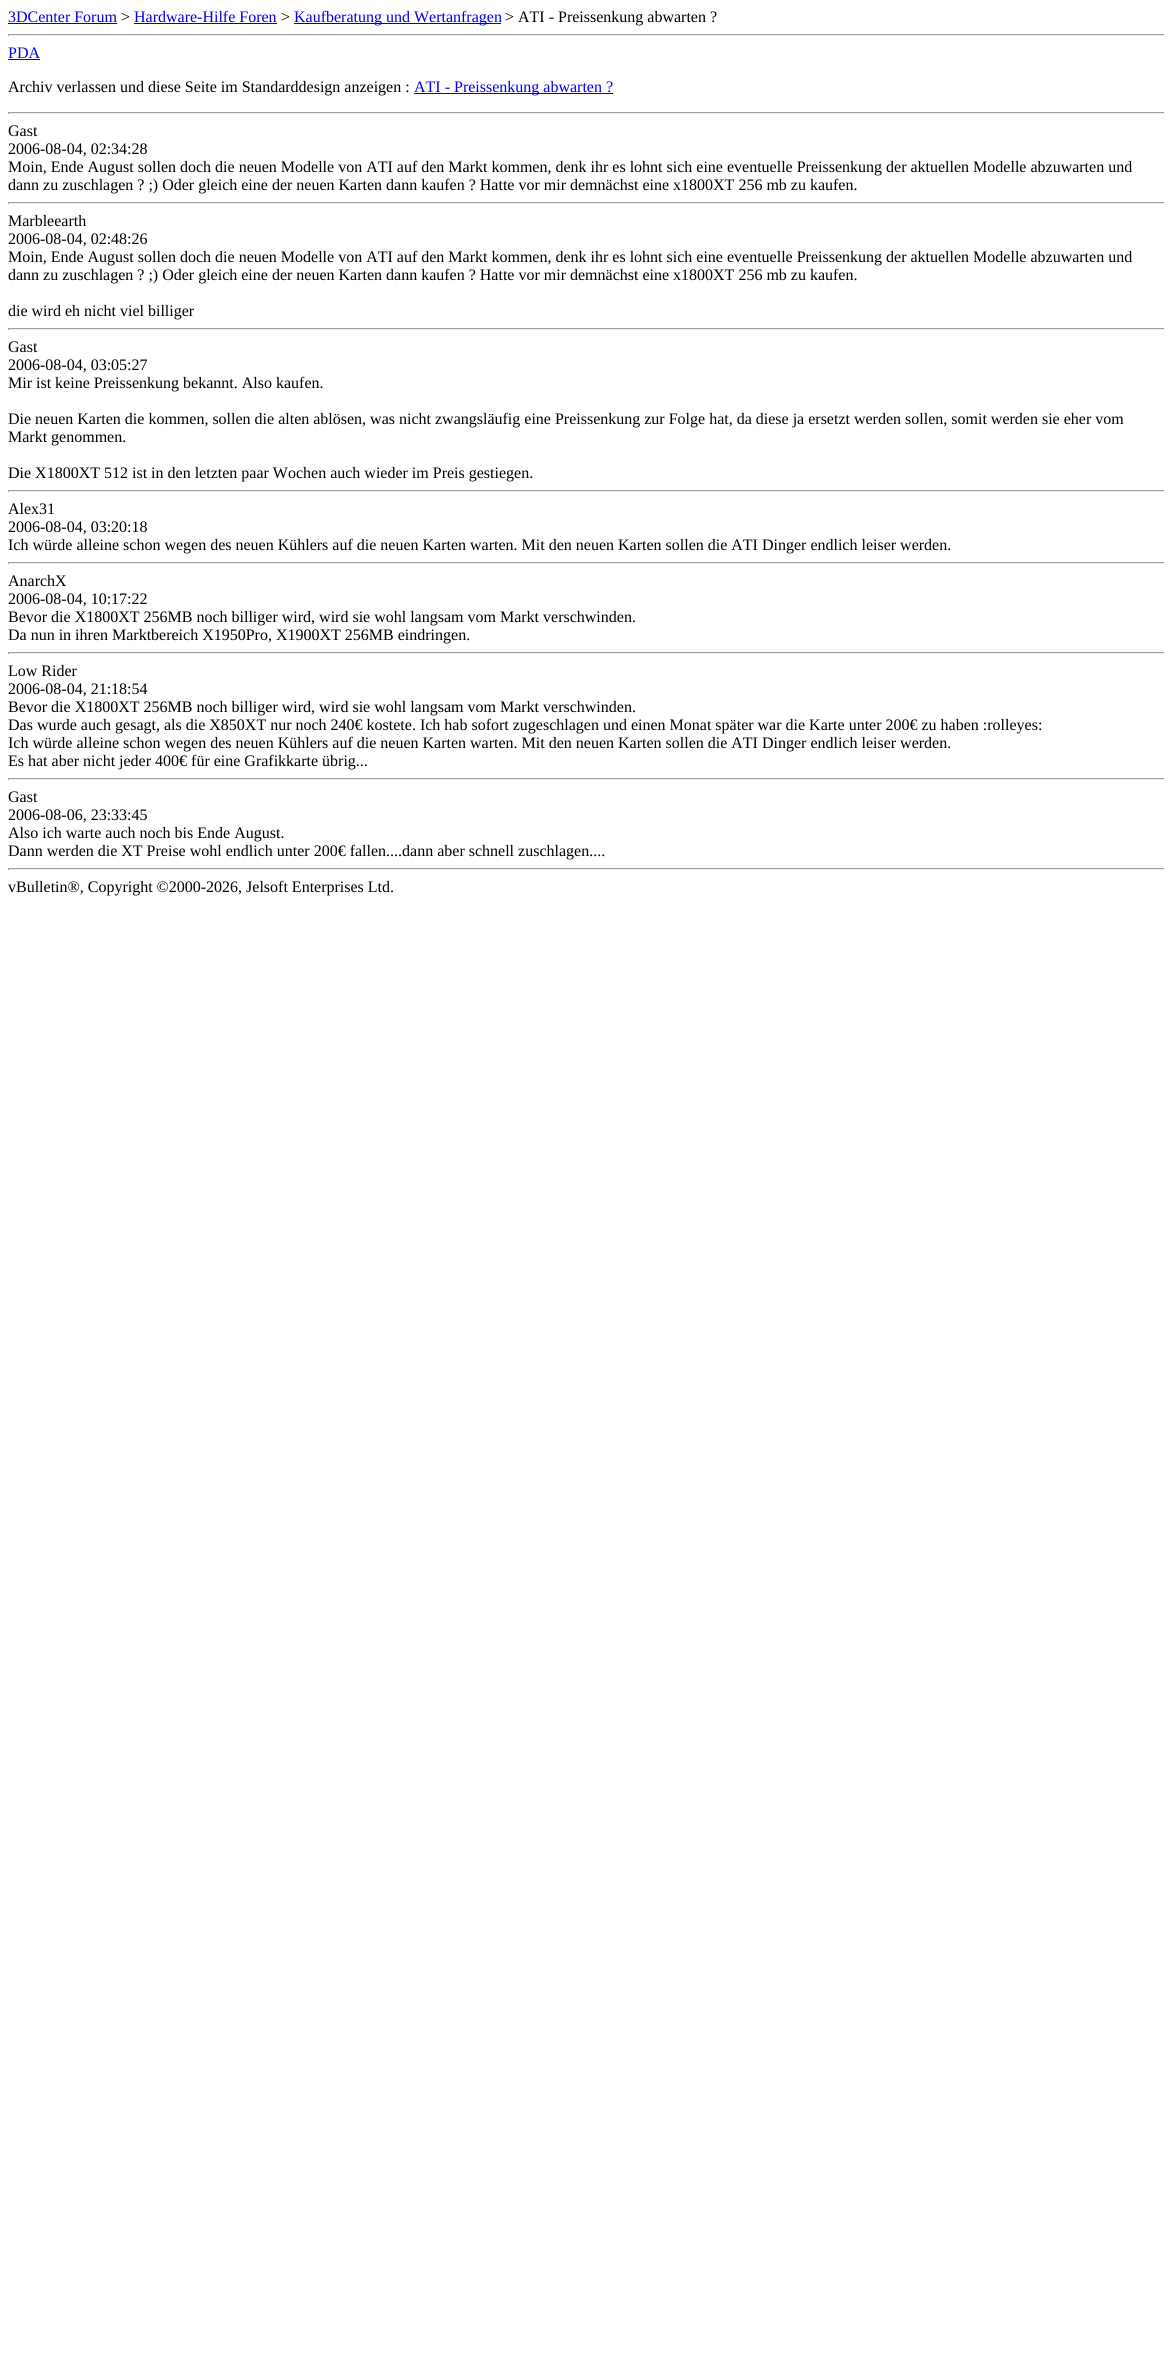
import math
import cairo

surface = cairo.ImageSurface(cairo.FORMAT_RGB24, 1173, 2375)
ctx = cairo.Context(surface)
options = cairo.FontOptions()
options.set_hint_metrics(cairo.HINT_METRICS_OFF)
options.set_hint_style(cairo.HINT_STYLE_NONE)
ctx.set_font_options(options)
ctx.set_miter_limit(4)


ctx.set_source_rgb(1, 1, 1)
ctx.paint()
ctx.select_font_face("Liberation Serif")
ctx.set_font_size(16)
ctx.set_source_rgb(0, 0, 0.933)
ctx.move_to(8, 22)
ctx.show_text("3DCenter Forum")
ctx.rectangle(8, 23, 109, 1)
ctx.fill()
ctx.set_source_rgb(0, 0, 0)
ctx.move_to(121, 22)
ctx.show_text(">")
ctx.set_source_rgb(0, 0, 0.933)
ctx.move_to(134, 22)
ctx.show_text("Hardware-Hilfe Foren")
ctx.rectangle(134, 23, 143, 1)
ctx.fill()
ctx.set_source_rgb(0, 0, 0)
ctx.move_to(281, 22)
ctx.show_text(">")
ctx.set_source_rgb(0, 0, 0.933)
ctx.rectangle(294, 23, 207, 1)
ctx.fill()
ctx.move_to(294, 22)
ctx.show_text("Kaufberatung und Wertanfragen")
ctx.set_source_rgb(0, 0, 0)
ctx.move_to(505, 22)
ctx.show_text("> ATI - Preissenkung abwarten ?")
ctx.set_source_rgb(0.624, 0.624, 0.624)
ctx.rectangle(8, 34, 1157, 1)
ctx.fill()
ctx.set_source_rgb(0.933, 0.933, 0.933)
ctx.rectangle(1164, 34, 1, 2)
ctx.fill()
ctx.rectangle(8, 35, 1157, 1)
ctx.fill()
ctx.set_source_rgb(0.624, 0.624, 0.624)
ctx.rectangle(8, 34, 1, 2)
ctx.fill()
ctx.set_source_rgb(0, 0, 0.933)
ctx.move_to(8, 58)
ctx.show_text("PDA")
ctx.rectangle(8, 59, 32, 1)
ctx.fill()
ctx.set_source_rgb(0, 0, 0)
ctx.move_to(8, 92)
ctx.show_text("Archiv verlassen und diese Seite im Standarddesign anzeigen :")
ctx.set_source_rgb(0, 0, 0.933)
ctx.rectangle(414, 93, 199, 1)
ctx.fill()
ctx.move_to(414, 92)
ctx.show_text("ATI - Preissenkung abwarten ?")
ctx.set_source_rgb(0.624, 0.624, 0.624)
ctx.rectangle(8, 112, 1157, 1)
ctx.fill()
ctx.set_source_rgb(0.933, 0.933, 0.933)
ctx.rectangle(1164, 112, 1, 2)
ctx.fill()
ctx.rectangle(8, 113, 1157, 1)
ctx.fill()
ctx.set_source_rgb(0.624, 0.624, 0.624)
ctx.rectangle(8, 112, 1, 2)
ctx.fill()
ctx.set_source_rgb(0, 0, 0)
ctx.move_to(8, 136)
ctx.show_text("Gast")
ctx.move_to(8, 154)
ctx.show_text("2006-08-04, 02:34:28")
ctx.move_to(8, 172)
ctx.show_text("Moin, Ende August sollen doch die neuen Modelle von ATI auf den Markt kommen, denk ihr es lohnt sich eine eventuelle Preissenkung der aktuellen Modelle abzuwarten und")
ctx.move_to(8, 190)
ctx.show_text("dann zu zuschlagen ? ;) Oder gleich eine der neuen Karten dann kaufen ? Hatte vor mir demnächst eine x1800XT 256 mb zu kaufen.")
ctx.set_source_rgb(0.624, 0.624, 0.624)
ctx.rectangle(8, 202, 1157, 1)
ctx.fill()
ctx.set_source_rgb(0.933, 0.933, 0.933)
ctx.rectangle(1164, 202, 1, 2)
ctx.fill()
ctx.rectangle(8, 203, 1157, 1)
ctx.fill()
ctx.set_source_rgb(0.624, 0.624, 0.624)
ctx.rectangle(8, 202, 1, 2)
ctx.fill()
ctx.set_source_rgb(0, 0, 0)
ctx.move_to(8, 226)
ctx.show_text("Marbleearth")
ctx.move_to(8, 244)
ctx.show_text("2006-08-04, 02:48:26")
ctx.move_to(8, 262)
ctx.show_text("Moin, Ende August sollen doch die neuen Modelle von ATI auf den Markt kommen, denk ihr es lohnt sich eine eventuelle Preissenkung der aktuellen Modelle abzuwarten und")
ctx.move_to(8, 280)
ctx.show_text("dann zu zuschlagen ? ;) Oder gleich eine der neuen Karten dann kaufen ? Hatte vor mir demnächst eine x1800XT 256 mb zu kaufen.")
ctx.move_to(8, 316)
ctx.show_text("die wird eh nicht viel billiger")
ctx.set_source_rgb(0.624, 0.624, 0.624)
ctx.rectangle(8, 328, 1157, 1)
ctx.fill()
ctx.set_source_rgb(0.933, 0.933, 0.933)
ctx.rectangle(1164, 328, 1, 2)
ctx.fill()
ctx.rectangle(8, 329, 1157, 1)
ctx.fill()
ctx.set_source_rgb(0.624, 0.624, 0.624)
ctx.rectangle(8, 328, 1, 2)
ctx.fill()
ctx.set_source_rgb(0, 0, 0)
ctx.move_to(8, 352)
ctx.show_text("Gast")
ctx.move_to(8, 370)
ctx.show_text("2006-08-04, 03:05:27")
ctx.move_to(8, 388)
ctx.show_text("Mir ist keine Preissenkung bekannt. Also kaufen.")
ctx.move_to(8, 424)
ctx.show_text("Die neuen Karten die kommen, sollen die alten ablösen, was nicht zwangsläufig eine Preissenkung zur Folge hat, da diese ja ersetzt werden sollen, somit werden sie eher vom")
ctx.move_to(8, 442)
ctx.show_text("Markt genommen.")
ctx.move_to(8, 478)
ctx.show_text("Die X1800XT 512 ist in den letzten paar Wochen auch wieder im Preis gestiegen.")
ctx.set_source_rgb(0.624, 0.624, 0.624)
ctx.rectangle(8, 490, 1157, 1)
ctx.fill()
ctx.set_source_rgb(0.933, 0.933, 0.933)
ctx.rectangle(1164, 490, 1, 2)
ctx.fill()
ctx.rectangle(8, 491, 1157, 1)
ctx.fill()
ctx.set_source_rgb(0.624, 0.624, 0.624)
ctx.rectangle(8, 490, 1, 2)
ctx.fill()
ctx.set_source_rgb(0, 0, 0)
ctx.move_to(8, 514)
ctx.show_text("Alex31")
ctx.move_to(8, 532)
ctx.show_text("2006-08-04, 03:20:18")
ctx.move_to(8, 550)
ctx.show_text("Ich würde alleine schon wegen des neuen Kühlers auf die neuen Karten warten. Mit den neuen Karten sollen die ATI Dinger endlich leiser werden.")
ctx.set_source_rgb(0.624, 0.624, 0.624)
ctx.rectangle(8, 562, 1157, 1)
ctx.fill()
ctx.set_source_rgb(0.933, 0.933, 0.933)
ctx.rectangle(1164, 562, 1, 2)
ctx.fill()
ctx.rectangle(8, 563, 1157, 1)
ctx.fill()
ctx.set_source_rgb(0.624, 0.624, 0.624)
ctx.rectangle(8, 562, 1, 2)
ctx.fill()
ctx.set_source_rgb(0, 0, 0)
ctx.move_to(8, 586)
ctx.show_text("AnarchX")
ctx.move_to(8, 604)
ctx.show_text("2006-08-04, 10:17:22")
ctx.move_to(8, 622)
ctx.show_text("Bevor die X1800XT 256MB noch billiger wird, wird sie wohl langsam vom Markt verschwinden.")
ctx.move_to(8, 640)
ctx.show_text("Da nun in ihren Marktbereich X1950Pro, X1900XT 256MB eindringen.")
ctx.set_source_rgb(0.624, 0.624, 0.624)
ctx.rectangle(8, 652, 1157, 1)
ctx.fill()
ctx.set_source_rgb(0.933, 0.933, 0.933)
ctx.rectangle(1164, 652, 1, 2)
ctx.fill()
ctx.rectangle(8, 653, 1157, 1)
ctx.fill()
ctx.set_source_rgb(0.624, 0.624, 0.624)
ctx.rectangle(8, 652, 1, 2)
ctx.fill()
ctx.set_source_rgb(0, 0, 0)
ctx.move_to(8, 676)
ctx.show_text("Low Rider")
ctx.move_to(8, 694)
ctx.show_text("2006-08-04, 21:18:54")
ctx.move_to(8, 712)
ctx.show_text("Bevor die X1800XT 256MB noch billiger wird, wird sie wohl langsam vom Markt verschwinden.")
ctx.move_to(8, 730)
ctx.show_text("Das wurde auch gesagt, als die X850XT nur noch 240€ kostete. Ich hab sofort zugeschlagen und einen Monat später war die Karte unter 200€ zu haben :rolleyes:")
ctx.move_to(8, 748)
ctx.show_text("Ich würde alleine schon wegen des neuen Kühlers auf die neuen Karten warten. Mit den neuen Karten sollen die ATI Dinger endlich leiser werden.")
ctx.move_to(8, 766)
ctx.show_text("Es hat aber nicht jeder 400€ für eine Grafikkarte übrig...")
ctx.set_source_rgb(0.624, 0.624, 0.624)
ctx.rectangle(8, 778, 1157, 1)
ctx.fill()
ctx.set_source_rgb(0.933, 0.933, 0.933)
ctx.rectangle(1164, 778, 1, 2)
ctx.fill()
ctx.rectangle(8, 779, 1157, 1)
ctx.fill()
ctx.set_source_rgb(0.624, 0.624, 0.624)
ctx.rectangle(8, 778, 1, 2)
ctx.fill()
ctx.set_source_rgb(0, 0, 0)
ctx.move_to(8, 802)
ctx.show_text("Gast")
ctx.move_to(8, 820)
ctx.show_text("2006-08-06, 23:33:45")
ctx.move_to(8, 838)
ctx.show_text("Also ich warte auch noch bis Ende August.")
ctx.move_to(8, 856)
ctx.show_text("Dann werden die XT Preise wohl endlich unter 200€ fallen....dann aber schnell zuschlagen....")
ctx.set_source_rgb(0.624, 0.624, 0.624)
ctx.rectangle(8, 868, 1157, 1)
ctx.fill()
ctx.set_source_rgb(0.933, 0.933, 0.933)
ctx.rectangle(1164, 868, 1, 2)
ctx.fill()
ctx.rectangle(8, 869, 1157, 1)
ctx.fill()
ctx.set_source_rgb(0.624, 0.624, 0.624)
ctx.rectangle(8, 868, 1, 2)
ctx.fill()
ctx.set_source_rgb(0, 0, 0)
ctx.move_to(8, 892)
ctx.show_text("vBulletin®, Copyright ©2000-2026, Jelsoft Enterprises Ltd.")
surface.write_to_png("page.png")
